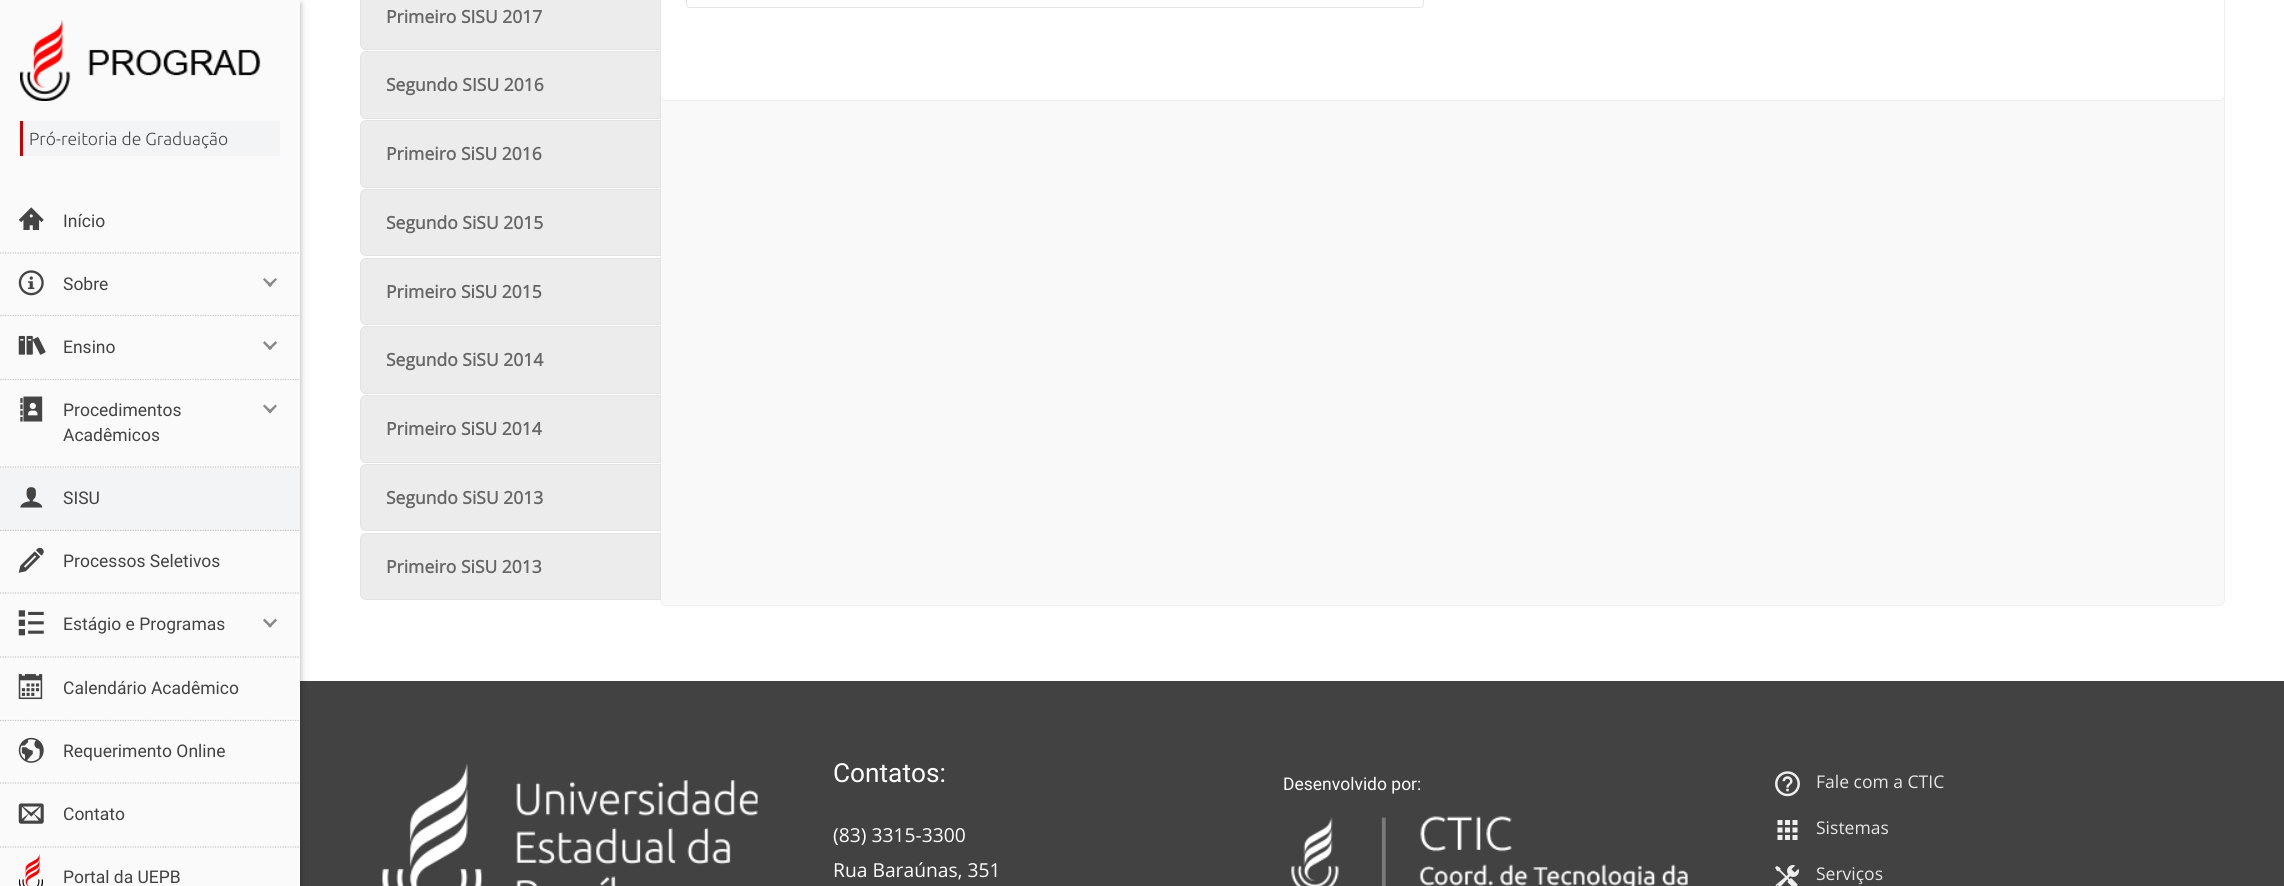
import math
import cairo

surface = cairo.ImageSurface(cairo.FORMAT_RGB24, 2284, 886)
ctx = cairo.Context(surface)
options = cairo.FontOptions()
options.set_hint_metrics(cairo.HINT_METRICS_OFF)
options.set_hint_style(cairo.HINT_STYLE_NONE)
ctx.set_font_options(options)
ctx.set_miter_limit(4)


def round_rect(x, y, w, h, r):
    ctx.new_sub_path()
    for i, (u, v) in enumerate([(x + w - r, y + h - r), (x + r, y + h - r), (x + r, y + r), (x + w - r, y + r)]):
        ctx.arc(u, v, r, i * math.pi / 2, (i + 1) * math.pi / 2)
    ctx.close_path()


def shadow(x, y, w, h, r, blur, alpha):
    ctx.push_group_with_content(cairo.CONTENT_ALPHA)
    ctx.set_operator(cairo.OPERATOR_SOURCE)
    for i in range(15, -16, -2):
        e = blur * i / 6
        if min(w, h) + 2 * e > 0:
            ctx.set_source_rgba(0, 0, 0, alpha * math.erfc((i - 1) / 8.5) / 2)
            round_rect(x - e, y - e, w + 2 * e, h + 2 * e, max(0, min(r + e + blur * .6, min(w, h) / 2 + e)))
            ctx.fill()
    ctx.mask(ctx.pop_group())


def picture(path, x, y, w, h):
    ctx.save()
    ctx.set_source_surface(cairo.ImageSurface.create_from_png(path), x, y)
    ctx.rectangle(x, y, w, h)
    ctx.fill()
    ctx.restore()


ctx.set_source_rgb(1, 1, 1)
ctx.paint()
ctx.set_source_rgb(0.259, 0.259, 0.259)
ctx.rectangle(300, 681, 1984, 205)
ctx.fill()
ctx.set_source_rgb(0, 0, 0)
shadow(1, 4, 298, 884, 0, 2.5, 0.2)
shadow(0, 1, 300, 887, 0, 6, 0.12)
shadow(0, 5, 300, 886, 0, 3, 0.14)
ctx.set_source_rgb(0.98, 0.98, 0.98)
ctx.rectangle(0, 0, 300, 886)
ctx.fill()
picture("img1.png", 20, 20, 241, 81)
ctx.set_source_rgb(0.949, 0.957, 0.961)
ctx.rectangle(23, 121, 257, 35)
ctx.fill()
ctx.set_source_rgb(0.788, 0.004, 0.004)
ctx.rectangle(20, 121, 3, 35)
ctx.fill()
ctx.select_font_face("Ubuntu Light")
ctx.set_font_size(17.5)
ctx.set_source_rgb(0.259, 0.259, 0.259)
ctx.move_to(29, 145)
ctx.show_text("Pró-reitoria de Graduação")
picture("img2.png", 18, 207, 26, 23)
ctx.new_path()
ctx.move_to(0, 253)
ctx.line_to(300, 253)
ctx.set_source_rgb(0.784, 0.784, 0.784)
ctx.set_line_width(1.2)
ctx.set_dash([1.25, 1.25])
ctx.stroke()
ctx.select_font_face("Roboto")
ctx.set_source_rgb(0.259, 0.259, 0.259)
ctx.move_to(63, 227)
ctx.show_text("Início")
picture("img3.png", 18, 270, 26, 26)
ctx.new_path()
ctx.move_to(0, 315.5)
ctx.line_to(300, 315.5)
ctx.set_source_rgb(0.784, 0.784, 0.784)
ctx.stroke()
ctx.set_source_rgb(0.259, 0.259, 0.259)
ctx.move_to(63, 290)
ctx.show_text("Sobre")
ctx.set_source_rgb(0.533, 0.533, 0.533)
ctx.new_path()
ctx.move_to(270, 287)
ctx.line_to(263, 279.5)
ctx.line_to(264.5, 278)
ctx.line_to(272, 285)
ctx.close_path()
ctx.fill()
ctx.new_path()
ctx.move_to(270, 287)
ctx.line_to(268, 285)
ctx.line_to(275.5, 278)
ctx.line_to(277, 279.5)
ctx.close_path()
ctx.fill()
picture("img4.png", 18, 335, 28, 20)
ctx.set_source_rgb(0.98, 0.98, 0.98)
ctx.rectangle(0, 316, 299, 1)
ctx.fill()
ctx.new_path()
ctx.move_to(0, 379.5)
ctx.line_to(300, 379.5)
ctx.set_source_rgb(0.784, 0.784, 0.784)
ctx.stroke()
ctx.set_source_rgb(0.259, 0.259, 0.259)
ctx.move_to(63, 353)
ctx.show_text("Ensino")
ctx.set_source_rgb(0.533, 0.533, 0.533)
ctx.new_path()
ctx.move_to(270, 350)
ctx.line_to(263, 343)
ctx.line_to(264.5, 341)
ctx.line_to(272, 348.5)
ctx.close_path()
ctx.fill()
ctx.new_path()
ctx.move_to(270, 350)
ctx.line_to(268, 348.5)
ctx.line_to(275.5, 341)
ctx.line_to(277, 343)
ctx.close_path()
ctx.fill()
picture("img5.png", 20, 396, 23, 26)
ctx.set_source_rgb(0.98, 0.98, 0.98)
ctx.rectangle(0, 380, 299, 1)
ctx.fill()
ctx.new_path()
ctx.move_to(0, 467)
ctx.line_to(300, 467)
ctx.set_source_rgb(0.784, 0.784, 0.784)
ctx.stroke()
ctx.set_source_rgb(0.259, 0.259, 0.259)
ctx.move_to(63, 416)
ctx.show_text("Procedimentos")
ctx.set_source_rgb(0.533, 0.533, 0.533)
ctx.new_path()
ctx.move_to(270, 413.5)
ctx.line_to(263, 406)
ctx.line_to(264.5, 404.5)
ctx.line_to(272, 411.5)
ctx.close_path()
ctx.fill()
ctx.new_path()
ctx.move_to(270, 413.5)
ctx.line_to(268, 411.5)
ctx.line_to(275.5, 404.5)
ctx.line_to(277, 406)
ctx.close_path()
ctx.fill()
ctx.set_source_rgb(0.259, 0.259, 0.259)
ctx.move_to(63, 441)
ctx.show_text("Acadêmicos")
ctx.set_source_rgb(0.949, 0.957, 0.961)
ctx.rectangle(0, 468, 300, 63)
ctx.fill()
picture("img6.png", 20, 487, 23, 21)
ctx.new_path()
ctx.move_to(0, 530.5)
ctx.line_to(300, 530.5)
ctx.set_source_rgb(0.761, 0.765, 0.769)
ctx.stroke()
ctx.set_source_rgb(0.259, 0.259, 0.259)
ctx.move_to(63, 504)
ctx.show_text("SISU")
picture("img7.png", 18, 547, 26, 26)
ctx.set_source_rgb(0.98, 0.98, 0.98)
ctx.rectangle(0, 531, 299, 1)
ctx.fill()
ctx.new_path()
ctx.move_to(0, 593)
ctx.line_to(300, 593)
ctx.set_source_rgb(0.784, 0.784, 0.784)
ctx.stroke()
ctx.set_source_rgb(0.259, 0.259, 0.259)
ctx.move_to(63, 567)
ctx.show_text("Processos Seletivos")
picture("img8.png", 18, 610, 26, 26)
ctx.new_path()
ctx.move_to(0, 657)
ctx.line_to(300, 657)
ctx.set_source_rgb(0.784, 0.784, 0.784)
ctx.stroke()
ctx.set_source_rgb(0.259, 0.259, 0.259)
ctx.move_to(63, 630)
ctx.show_text("Estágio e Programas")
ctx.set_source_rgb(0.533, 0.533, 0.533)
ctx.new_path()
ctx.move_to(270, 627.5)
ctx.line_to(263, 620.5)
ctx.line_to(264.5, 618.5)
ctx.line_to(272, 626)
ctx.close_path()
ctx.fill()
ctx.new_path()
ctx.move_to(270, 627.5)
ctx.line_to(268, 626)
ctx.line_to(275.5, 618.5)
ctx.line_to(277, 620.5)
ctx.close_path()
ctx.fill()
picture("img9.png", 18, 674, 25, 26)
ctx.new_path()
ctx.move_to(0, 720.5)
ctx.line_to(300, 720.5)
ctx.set_source_rgb(0.784, 0.784, 0.784)
ctx.stroke()
ctx.set_source_rgb(0.259, 0.259, 0.259)
ctx.move_to(63, 694)
ctx.show_text("Calendário Acadêmico")
picture("img10.png", 18, 737, 26, 26)
ctx.set_source_rgb(0.98, 0.98, 0.98)
ctx.rectangle(0, 721, 299, 1)
ctx.fill()
ctx.new_path()
ctx.move_to(0, 783)
ctx.line_to(300, 783)
ctx.set_source_rgb(0.784, 0.784, 0.784)
ctx.stroke()
ctx.set_source_rgb(0.259, 0.259, 0.259)
ctx.move_to(63, 757)
ctx.show_text("Requerimento Online")
picture("img11.png", 18, 803, 26, 21)
ctx.new_path()
ctx.move_to(0, 847)
ctx.line_to(300, 847)
ctx.set_source_rgb(0.784, 0.784, 0.784)
ctx.stroke()
ctx.set_source_rgb(0.259, 0.259, 0.259)
ctx.move_to(63, 820)
ctx.show_text("Contato")
picture("img12.png", 19, 854, 24, 32)
ctx.move_to(63, 883)
ctx.show_text("Portal da UEPB")
ctx.set_source_rgb(0.973, 0.973, 0.973)
ctx.new_path()
ctx.move_to(660.5, -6.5)
ctx.line_to(2219, -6.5)
ctx.curve_to(2222, -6.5, 2224.5, -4, 2224.5, -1)
ctx.line_to(2224.5, 600)
ctx.curve_to(2224.5, 603, 2222, 605.5, 2219, 605.5)
ctx.line_to(666, 605.5)
ctx.curve_to(663, 605.5, 660.5, 603, 660.5, 600)
ctx.close_path()
ctx.fill_preserve()
ctx.set_source_rgb(0.941, 0.941, 0.941)
ctx.set_line_width(1)
ctx.set_dash([])
ctx.stroke()
ctx.set_source_rgb(1, 1, 1)
ctx.new_path()
ctx.move_to(660.5, -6.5)
ctx.line_to(2224.5, -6.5)
ctx.line_to(2224.5, 95)
ctx.curve_to(2224.5, 98, 2222, 100.5, 2219, 100.5)
ctx.line_to(666, 100.5)
ctx.curve_to(663, 100.5, 660.5, 98, 660.5, 95)
ctx.close_path()
ctx.fill_preserve()
ctx.set_source_rgb(0.933, 0.933, 0.933)
ctx.stroke()
ctx.set_source_rgb(0.922, 0.922, 0.922)
ctx.new_path()
ctx.move_to(366, -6.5)
ctx.line_to(660.5, -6.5)
ctx.line_to(660.5, 49.5)
ctx.line_to(366, 49.5)
ctx.curve_to(363, 49.5, 360.5, 47, 360.5, 44)
ctx.line_to(360.5, -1)
ctx.curve_to(360.5, -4, 363, -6.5, 366, -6.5)
ctx.close_path()
ctx.fill_preserve()
ctx.set_source_rgb(0.89, 0.89, 0.89)
ctx.stroke()
ctx.select_font_face("Open Sans", cairo.FONT_SLANT_NORMAL, cairo.FONT_WEIGHT_BOLD)
ctx.set_source_rgb(0.4, 0.4, 0.4)
ctx.move_to(386, 23)
ctx.show_text("Primeiro SISU 2017")
ctx.set_source_rgb(0.941, 0.941, 0.941)
ctx.rectangle(660, 97, 1, 1)
ctx.fill()
ctx.set_source_rgb(0.922, 0.922, 0.922)
ctx.new_path()
ctx.move_to(366, 51.5)
ctx.line_to(660.5, 51.5)
ctx.line_to(660.5, 118.5)
ctx.line_to(366, 118.5)
ctx.curve_to(363, 118.5, 360.5, 116, 360.5, 113)
ctx.line_to(360.5, 57)
ctx.curve_to(360.5, 54, 363, 51.5, 366, 51.5)
ctx.close_path()
ctx.fill_preserve()
ctx.set_source_rgb(0.89, 0.89, 0.89)
ctx.stroke()
ctx.set_source_rgb(0.4, 0.4, 0.4)
ctx.move_to(386, 91)
ctx.show_text("Segundo SISU 2016")
ctx.set_source_rgb(0.922, 0.922, 0.922)
ctx.new_path()
ctx.move_to(366, 120.5)
ctx.line_to(660.5, 120.5)
ctx.line_to(660.5, 187.5)
ctx.line_to(366, 187.5)
ctx.curve_to(363, 187.5, 360.5, 185, 360.5, 182)
ctx.line_to(360.5, 126)
ctx.curve_to(360.5, 123, 363, 120.5, 366, 120.5)
ctx.close_path()
ctx.fill_preserve()
ctx.set_source_rgb(0.89, 0.89, 0.89)
ctx.stroke()
ctx.set_source_rgb(0.4, 0.4, 0.4)
ctx.move_to(386, 160)
ctx.show_text("Primeiro SiSU 2016")
ctx.set_source_rgb(0.922, 0.922, 0.922)
ctx.new_path()
ctx.move_to(366, 189.5)
ctx.line_to(660.5, 189.5)
ctx.line_to(660.5, 255.5)
ctx.line_to(366, 255.5)
ctx.curve_to(363, 255.5, 360.5, 253, 360.5, 250)
ctx.line_to(360.5, 195)
ctx.curve_to(360.5, 192, 363, 189.5, 366, 189.5)
ctx.close_path()
ctx.fill_preserve()
ctx.set_source_rgb(0.89, 0.89, 0.89)
ctx.stroke()
ctx.set_source_rgb(0.4, 0.4, 0.4)
ctx.move_to(386, 229)
ctx.show_text("Segundo SiSU 2015")
ctx.set_source_rgb(0.922, 0.922, 0.922)
ctx.new_path()
ctx.move_to(366, 258.5)
ctx.line_to(660.5, 258.5)
ctx.line_to(660.5, 324.5)
ctx.line_to(366, 324.5)
ctx.curve_to(363, 324.5, 360.5, 322, 360.5, 319)
ctx.line_to(360.5, 264)
ctx.curve_to(360.5, 261, 363, 258.5, 366, 258.5)
ctx.close_path()
ctx.fill_preserve()
ctx.set_source_rgb(0.89, 0.89, 0.89)
ctx.stroke()
ctx.set_source_rgb(0.4, 0.4, 0.4)
ctx.move_to(386, 298)
ctx.show_text("Primeiro SiSU 2015")
ctx.set_source_rgb(0.922, 0.922, 0.922)
ctx.new_path()
ctx.move_to(366, 326.5)
ctx.line_to(660.5, 326.5)
ctx.line_to(660.5, 393.5)
ctx.line_to(366, 393.5)
ctx.curve_to(363, 393.5, 360.5, 391, 360.5, 388)
ctx.line_to(360.5, 332)
ctx.curve_to(360.5, 329, 363, 326.5, 366, 326.5)
ctx.close_path()
ctx.fill_preserve()
ctx.set_source_rgb(0.89, 0.89, 0.89)
ctx.stroke()
ctx.set_source_rgb(0.4, 0.4, 0.4)
ctx.move_to(386, 366)
ctx.show_text("Segundo SiSU 2014")
ctx.set_source_rgb(0.922, 0.922, 0.922)
ctx.new_path()
ctx.move_to(366, 395.5)
ctx.line_to(660.5, 395.5)
ctx.line_to(660.5, 462.5)
ctx.line_to(366, 462.5)
ctx.curve_to(363, 462.5, 360.5, 460, 360.5, 457)
ctx.line_to(360.5, 401)
ctx.curve_to(360.5, 398, 363, 395.5, 366, 395.5)
ctx.close_path()
ctx.fill_preserve()
ctx.set_source_rgb(0.89, 0.89, 0.89)
ctx.stroke()
ctx.set_source_rgb(0.4, 0.4, 0.4)
ctx.move_to(386, 435)
ctx.show_text("Primeiro SiSU 2014")
ctx.set_source_rgb(0.922, 0.922, 0.922)
ctx.new_path()
ctx.move_to(366, 464.5)
ctx.line_to(660.5, 464.5)
ctx.line_to(660.5, 530.5)
ctx.line_to(366, 530.5)
ctx.curve_to(363, 530.5, 360.5, 528, 360.5, 525)
ctx.line_to(360.5, 470)
ctx.curve_to(360.5, 467, 363, 464.5, 366, 464.5)
ctx.close_path()
ctx.fill_preserve()
ctx.set_source_rgb(0.89, 0.89, 0.89)
ctx.stroke()
ctx.set_source_rgb(0.4, 0.4, 0.4)
ctx.move_to(386, 504)
ctx.show_text("Segundo SiSU 2013")
ctx.set_source_rgb(0.922, 0.922, 0.922)
ctx.new_path()
ctx.move_to(366, 533.5)
ctx.line_to(660.5, 533.5)
ctx.line_to(660.5, 599.5)
ctx.line_to(366, 599.5)
ctx.curve_to(363, 599.5, 360.5, 597, 360.5, 594)
ctx.line_to(360.5, 539)
ctx.curve_to(360.5, 536, 363, 533.5, 366, 533.5)
ctx.close_path()
ctx.fill_preserve()
ctx.set_source_rgb(0.89, 0.89, 0.89)
ctx.stroke()
ctx.set_source_rgb(0.4, 0.4, 0.4)
ctx.move_to(386, 573)
ctx.show_text("Primeiro SiSU 2013")
round_rect(686.5, -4.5, 737, 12, 3.5)
ctx.set_source_rgb(0.898, 0.898, 0.898)
ctx.stroke()
picture("img13.png", 382, 764, 376, 122)
ctx.select_font_face("Roboto")
ctx.set_font_size(26.25)
ctx.set_source_rgb(1, 1, 1)
ctx.move_to(833, 782)
ctx.show_text("Contatos:")
ctx.select_font_face("Open Sans")
ctx.set_font_size(19.25)
ctx.move_to(833, 842)
ctx.show_text("(83) 3315-3300")
ctx.move_to(833, 877)
ctx.show_text("Rua Baraúnas, 351")
ctx.select_font_face("Roboto")
ctx.set_font_size(17.5)
ctx.move_to(1283, 790)
ctx.show_text("Desenvolvido por:")
picture("img14.png", 1291, 816, 397, 70)
picture("img15.png", 1775, 771, 25, 26)
ctx.select_font_face("Open Sans")
ctx.set_source_rgb(0.902, 0.902, 0.902)
ctx.move_to(1816, 788)
ctx.show_text("Fale com a CTIC")
picture("img16.png", 1777, 820, 21, 20)
ctx.move_to(1816, 834)
ctx.show_text("Sistemas")
picture("img17.png", 1775, 865, 24, 21)
ctx.move_to(1816, 880)
ctx.show_text("Serviços")
surface.write_to_png("page.png")
